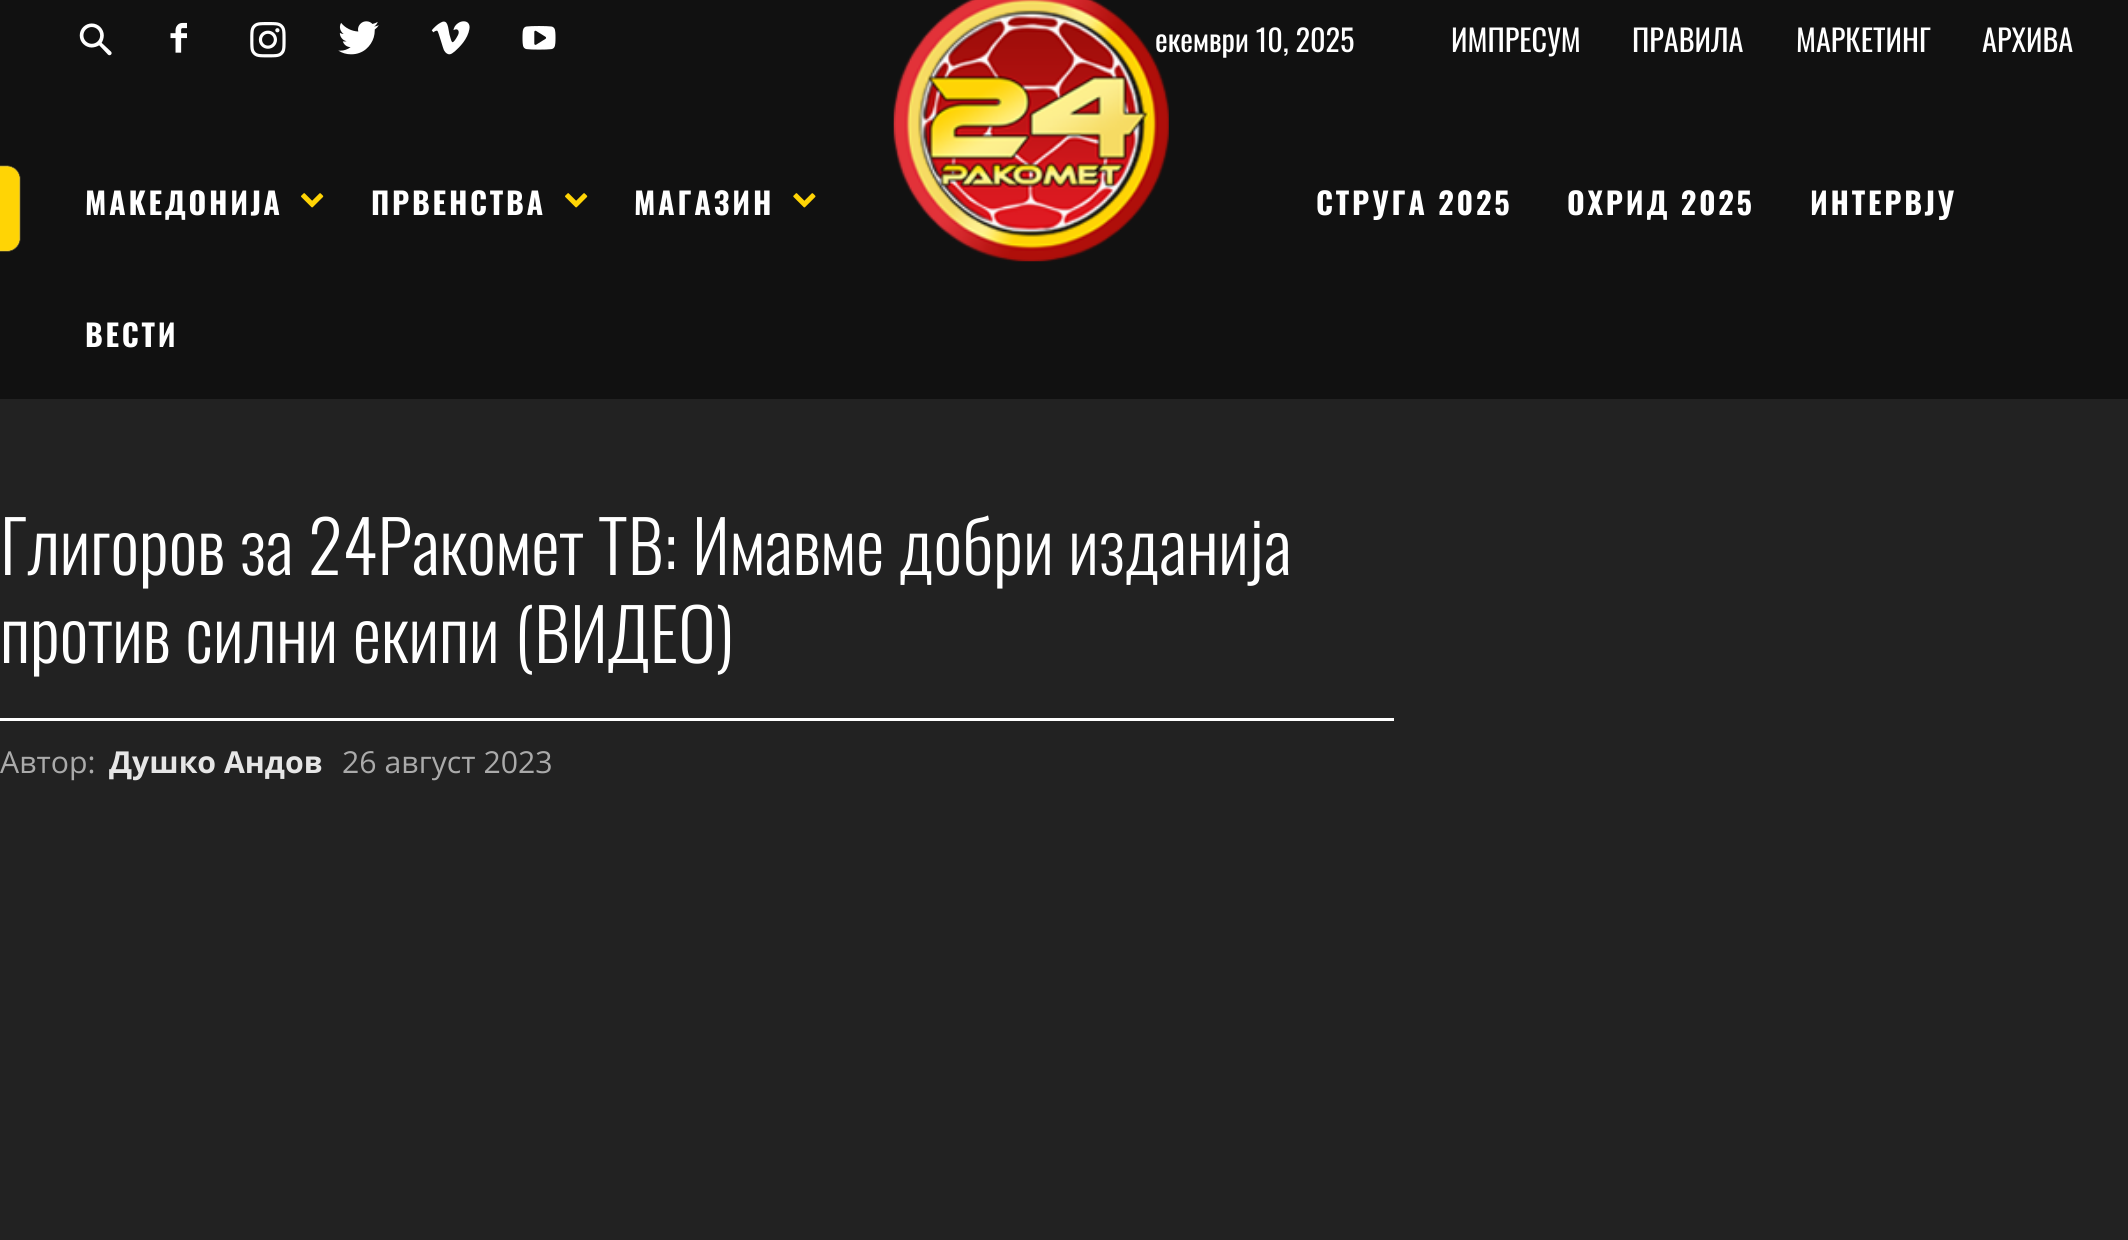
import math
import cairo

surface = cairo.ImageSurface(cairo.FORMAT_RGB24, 2128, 1240)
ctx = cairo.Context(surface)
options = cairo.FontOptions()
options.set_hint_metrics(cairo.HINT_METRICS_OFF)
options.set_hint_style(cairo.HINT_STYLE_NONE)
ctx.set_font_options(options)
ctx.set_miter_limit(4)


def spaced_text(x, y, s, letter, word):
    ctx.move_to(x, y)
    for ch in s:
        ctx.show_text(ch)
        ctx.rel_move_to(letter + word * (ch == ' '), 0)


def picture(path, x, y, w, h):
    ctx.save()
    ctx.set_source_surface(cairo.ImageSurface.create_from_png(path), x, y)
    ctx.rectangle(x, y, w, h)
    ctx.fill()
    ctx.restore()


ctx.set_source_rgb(0.133, 0.133, 0.133)
ctx.paint()
ctx.set_source_rgb(0.067, 0.067, 0.067)
ctx.rectangle(0, 0, 2128, 399)
ctx.fill()
ctx.select_font_face("Oswald")
ctx.set_font_size(30.25)
ctx.set_source_rgb(1, 1, 1)
ctx.move_to(1155, 52)
ctx.show_text("екември 10, 2025")
picture("img1.png", 893, 0, 276, 262)
picture("img2.png", 79, 23, 33, 33)
picture("img3.png", 170, 22, 17, 31)
picture("img4.png", 250, 22, 36, 36)
picture("img5.png", 338, 21, 41, 34)
picture("img6.png", 431, 21, 39, 34)
picture("img7.png", 522, 26, 34, 24)
ctx.move_to(1451, 52)
ctx.show_text("ИМПРЕСУМ")
ctx.move_to(1632, 52)
ctx.show_text("ПРАВИЛА")
ctx.move_to(1796, 52)
ctx.show_text("МАРКЕТИНГ")
ctx.move_to(1982, 52)
ctx.show_text("АРХИВА")
picture("img8.png", 0, 165, 21, 87)
ctx.select_font_face("Oswald", cairo.FONT_SLANT_NORMAL, cairo.FONT_WEIGHT_BOLD)
spaced_text(85, 215, "МАКЕДОНИЈА", 2.75, 0)
picture("img9.png", 301, 193, 23, 15)
spaced_text(371, 215, "ПРВЕНСТВА", 2.75, 0)
picture("img9.png", 565, 193, 23, 15)
spaced_text(634, 215, "МАГАЗИН", 2.75, 0)
picture("img10.png", 793, 193, 23, 15)
spaced_text(1316, 215, "СТРУГА 2025", 2.75, 0)
spaced_text(1567, 215, "ОХРИД 2025", 2.75, 0)
spaced_text(1810, 215, "ИНТЕРВЈУ", 2.75, 0)
spaced_text(85, 347, "ВЕСТИ", 2.75, 0)
ctx.rectangle(0, 718, 1394, 3)
ctx.fill()
ctx.select_font_face("Oswald Light")
ctx.set_font_size(71.5)
ctx.move_to(0, 575)
ctx.show_text("Глигоров за 24Ракомет ТВ: Имавме добри изданија")
ctx.move_to(0, 663)
ctx.show_text("против силни екипи (ВИДЕО)")
ctx.select_font_face("Open Sans")
ctx.set_font_size(30.25)
ctx.set_source_rgb(0.667, 0.667, 0.667)
ctx.move_to(0, 773)
ctx.show_text("Автор:")
ctx.select_font_face("Open Sans", cairo.FONT_SLANT_NORMAL, cairo.FONT_WEIGHT_BOLD)
ctx.set_source_rgb(0.902, 0.902, 0.902)
ctx.move_to(109, 773)
ctx.show_text("Душко Андов")
ctx.select_font_face("Open Sans")
ctx.set_source_rgb(0.667, 0.667, 0.667)
ctx.move_to(342, 773)
ctx.show_text("26 август 2023")
surface.write_to_png("page.png")
